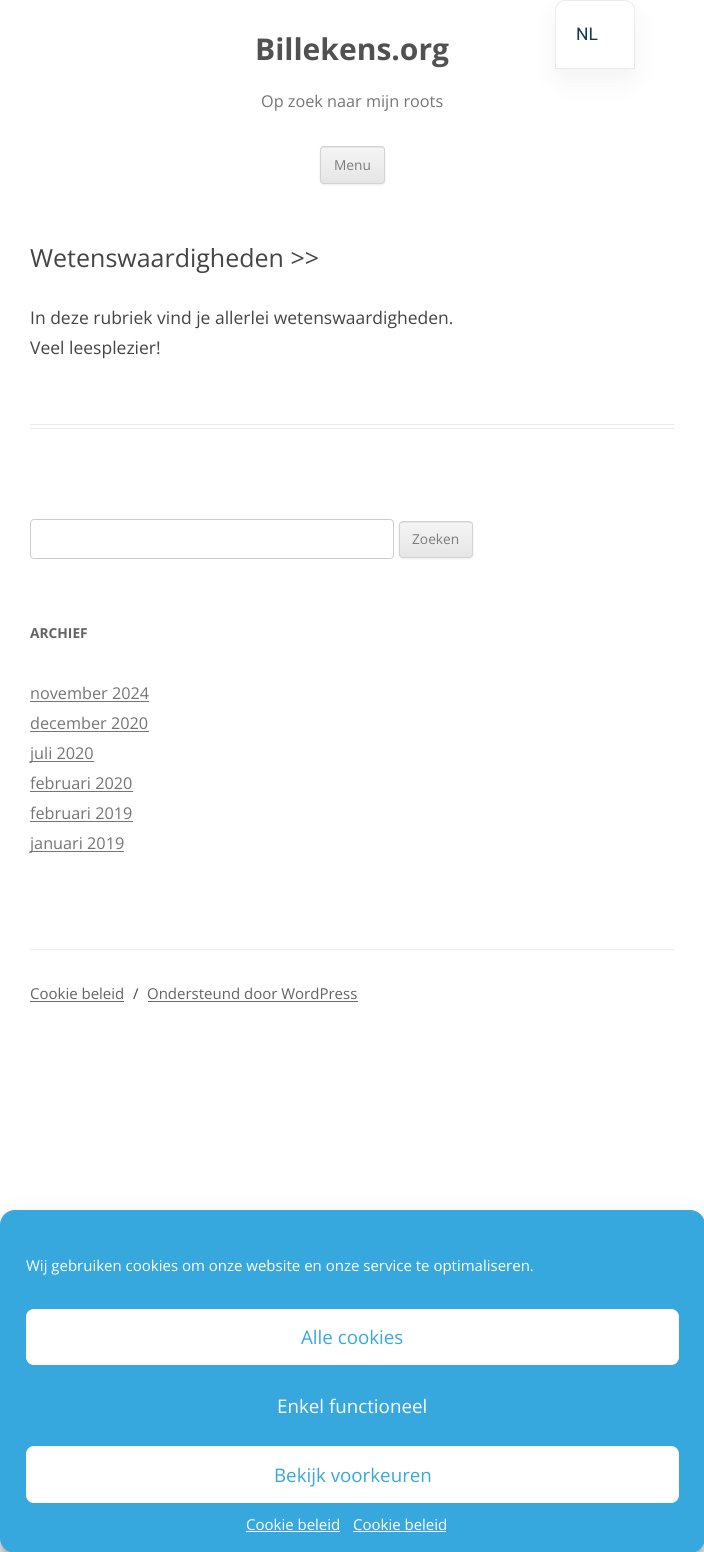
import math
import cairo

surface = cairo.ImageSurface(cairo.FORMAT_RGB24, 704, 1552)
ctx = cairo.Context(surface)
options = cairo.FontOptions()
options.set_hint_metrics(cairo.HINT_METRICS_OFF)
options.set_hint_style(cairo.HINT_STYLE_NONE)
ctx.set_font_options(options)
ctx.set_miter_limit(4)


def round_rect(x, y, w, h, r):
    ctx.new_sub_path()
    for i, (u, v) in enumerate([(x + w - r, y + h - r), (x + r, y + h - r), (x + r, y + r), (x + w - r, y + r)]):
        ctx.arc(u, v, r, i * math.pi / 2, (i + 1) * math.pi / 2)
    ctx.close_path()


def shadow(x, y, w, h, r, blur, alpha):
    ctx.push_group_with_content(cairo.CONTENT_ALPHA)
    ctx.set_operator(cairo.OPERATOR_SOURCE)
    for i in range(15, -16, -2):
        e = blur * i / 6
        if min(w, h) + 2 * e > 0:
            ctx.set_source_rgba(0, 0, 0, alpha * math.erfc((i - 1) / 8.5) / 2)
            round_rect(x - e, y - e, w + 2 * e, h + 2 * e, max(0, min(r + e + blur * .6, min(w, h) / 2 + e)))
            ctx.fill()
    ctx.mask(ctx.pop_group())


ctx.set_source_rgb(1, 1, 1)
ctx.paint()
ctx.set_source_rgb(0, 0, 0)
shadow(555, 13, 80, 68, 10, 12.5, 0.05)
ctx.set_source_rgb(1, 1, 1)
ctx.new_path()
ctx.move_to(565, 0.5)
ctx.line_to(625, 0.5)
ctx.curve_to(630, 0.5, 634.5, 5, 634.5, 10)
ctx.line_to(634.5, 68.5)
ctx.line_to(555.5, 68.5)
ctx.line_to(555.5, 10)
ctx.curve_to(555.5, 5, 560, 0.5, 565, 0.5)
ctx.close_path()
ctx.fill_preserve()
ctx.set_source_rgb(0.906, 0.922, 0.933)
ctx.set_line_width(1)
ctx.stroke()
ctx.select_font_face("Roboto")
ctx.set_font_size(17.5)
ctx.set_source_rgb(0.078, 0.22, 0.322)
ctx.move_to(576, 40)
ctx.show_text("NL")
ctx.select_font_face("Open Sans", cairo.FONT_SLANT_NORMAL, cairo.FONT_WEIGHT_BOLD)
ctx.set_font_size(30)
ctx.set_source_rgb(0.318, 0.318, 0.318)
ctx.move_to(255, 60)
ctx.show_text("Billekens.org")
ctx.select_font_face("Open Sans")
ctx.set_font_size(16.25)
ctx.set_source_rgb(0.459, 0.459, 0.459)
ctx.move_to(261, 107)
ctx.show_text("Op zoek naar mijn roots")
ctx.set_source_rgb(0.251, 0.251, 0.251)
shadow(320, 148, 65, 37, 4, 1, 0.1)
ctx.set_source_rgb(0.902, 0.902, 0.902)
round_rect(320, 146, 65, 38, 4)
ctx.fill()
ctx.save()
round_rect(320, 146, 65, 38, 4)
ctx.clip()
gradient = cairo.LinearGradient(353, 148, 353, 183)
gradient.add_color_stop_rgba(0, 0.957, 0.957, 0.957, 1)
gradient.add_color_stop_rgba(1, 0.902, 0.902, 0.902, 1)
ctx.set_source(gradient)
ctx.rectangle(320, 148, 65, 35)
ctx.fill()
ctx.restore()
round_rect(320.5, 146.5, 64, 37, 3.5)
ctx.set_source_rgb(0.824, 0.824, 0.824)
ctx.stroke()
ctx.set_font_size(13.75)
ctx.set_source_rgb(0.486, 0.486, 0.486)
ctx.move_to(334, 170)
ctx.show_text("Menu")
ctx.set_source_rgb(0.929, 0.929, 0.929)
ctx.rectangle(30, 424, 645, 1)
ctx.fill()
ctx.rectangle(30, 428, 645, 1)
ctx.fill()
ctx.set_font_size(25)
ctx.set_source_rgb(0.267, 0.267, 0.267)
ctx.move_to(30, 267)
ctx.show_text("Wetenswaardigheden >>")
ctx.set_font_size(17.5)
ctx.move_to(30, 324)
ctx.show_text("In deze rubriek vind je allerlei wetenswaardigheden.")
ctx.move_to(30, 354)
ctx.show_text("Veel leesplezier!")
round_rect(30.5, 519.5, 363, 39, 3.5)
ctx.set_source_rgb(0.8, 0.8, 0.8)
ctx.stroke()
ctx.set_source_rgb(0.251, 0.251, 0.251)
shadow(399, 523, 74, 36, 4, 1, 0.1)
ctx.set_source_rgb(0.902, 0.902, 0.902)
round_rect(399, 521, 74, 37, 4)
ctx.fill()
ctx.save()
round_rect(399, 521, 74, 37, 4)
ctx.clip()
gradient = cairo.LinearGradient(436, 523, 436, 556)
gradient.add_color_stop_rgba(0, 0.957, 0.957, 0.957, 1)
gradient.add_color_stop_rgba(1, 0.902, 0.902, 0.902, 1)
ctx.set_source(gradient)
ctx.rectangle(399, 523, 74, 33)
ctx.fill()
ctx.restore()
round_rect(399.5, 521.5, 73, 36, 3.5)
ctx.set_source_rgb(0.824, 0.824, 0.824)
ctx.stroke()
ctx.set_font_size(13.75)
ctx.set_source_rgb(0.486, 0.486, 0.486)
ctx.move_to(412, 544)
ctx.show_text("Zoeken")
ctx.select_font_face("Open Sans", cairo.FONT_SLANT_NORMAL, cairo.FONT_WEIGHT_BOLD)
ctx.set_source_rgb(0.388, 0.388, 0.388)
ctx.move_to(30, 638)
ctx.show_text("ARCHIEF")
ctx.select_font_face("Open Sans")
ctx.set_font_size(16.25)
ctx.set_source_rgb(0.459, 0.459, 0.459)
ctx.move_to(30, 699)
ctx.show_text("november 2024")
ctx.rectangle(30, 701, 119, 1)
ctx.fill()
ctx.move_to(30, 729)
ctx.show_text("december 2020")
ctx.rectangle(30, 731, 119, 1)
ctx.fill()
ctx.rectangle(30, 761, 64, 1)
ctx.fill()
ctx.move_to(30, 759)
ctx.show_text("juli 2020")
ctx.move_to(30, 789)
ctx.show_text("februari 2020")
ctx.rectangle(30, 791, 103, 1)
ctx.fill()
ctx.move_to(30, 819)
ctx.show_text("februari 2019")
ctx.rectangle(30, 821, 103, 1)
ctx.fill()
ctx.rectangle(30, 851, 94, 1)
ctx.fill()
ctx.move_to(30, 849)
ctx.show_text("januari 2019")
ctx.set_source_rgb(0.929, 0.929, 0.929)
ctx.rectangle(30, 949, 645, 1)
ctx.fill()
ctx.set_font_size(15)
ctx.set_source_rgb(0.388, 0.388, 0.388)
ctx.move_to(30, 999)
ctx.show_text("Cookie beleid")
ctx.set_source_rgb(0.408, 0.408, 0.408)
ctx.rectangle(30, 1001, 94, 1)
ctx.fill()
ctx.set_source_rgb(0.267, 0.267, 0.267)
ctx.move_to(133, 999)
ctx.show_text("/")
ctx.set_source_rgb(0.388, 0.388, 0.388)
ctx.move_to(147, 999)
ctx.show_text("Ondersteund door WordPress")
ctx.set_source_rgb(0.408, 0.408, 0.408)
ctx.rectangle(148, 1001, 210, 1)
ctx.fill()
ctx.set_source_rgb(0, 0, 0)
shadow(0, 1218, 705, 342, 15, 4, 0.23)
shadow(0, 1223, 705, 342, 15, 12.5, 0.19)
ctx.set_source_rgb(0.216, 0.659, 0.871)
round_rect(0.5, 1210.5, 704, 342, 14.5)
ctx.fill_preserve()
ctx.stroke()
ctx.set_source_rgb(1, 1, 1)
ctx.move_to(26, 1271)
ctx.show_text("Wij gebruiken cookies om onze website en onze service te optimaliseren.")
round_rect(26.5, 1309.5, 652, 55, 7.5)
ctx.fill_preserve()
ctx.stroke()
ctx.set_font_size(18.75)
ctx.set_source_rgb(0.216, 0.659, 0.871)
ctx.move_to(301, 1344)
ctx.show_text("Alle cookies")
ctx.set_source_rgb(1, 1, 1)
ctx.move_to(277, 1413)
ctx.show_text("Enkel functioneel")
round_rect(26.5, 1446.5, 652, 56, 7.5)
ctx.fill_preserve()
ctx.stroke()
ctx.set_source_rgb(0.216, 0.659, 0.871)
ctx.move_to(274, 1482)
ctx.show_text("Bekijk voorkeuren")
ctx.set_font_size(15)
ctx.set_source_rgb(1, 1, 1)
ctx.move_to(246, 1530)
ctx.show_text("Cookie beleid")
ctx.rectangle(246, 1531, 94, 1)
ctx.fill()
ctx.move_to(353, 1530)
ctx.show_text("Cookie beleid")
ctx.rectangle(353, 1531, 93, 1)
ctx.fill()
surface.write_to_png("page.png")
